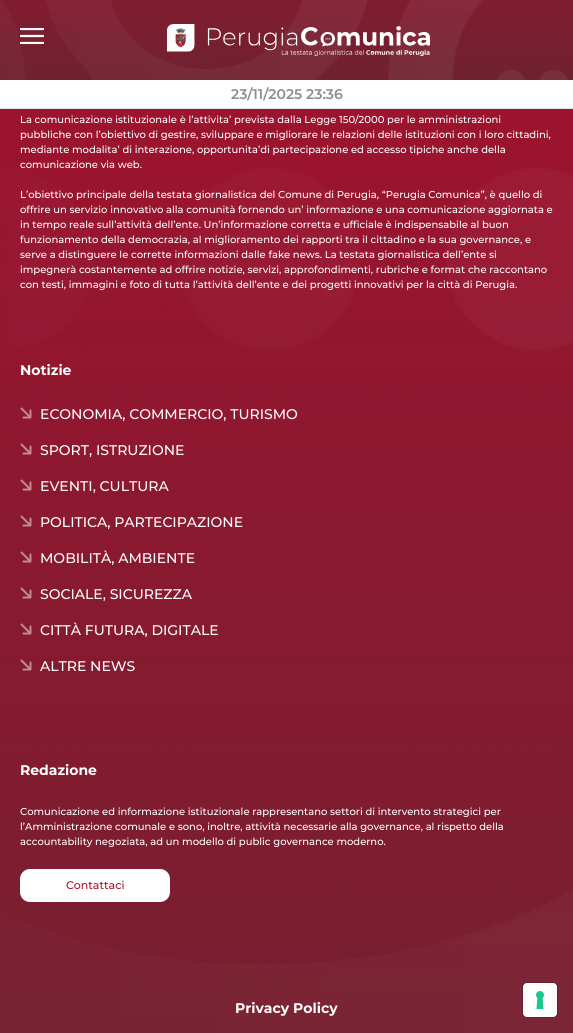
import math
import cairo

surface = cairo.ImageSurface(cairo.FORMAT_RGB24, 573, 1033)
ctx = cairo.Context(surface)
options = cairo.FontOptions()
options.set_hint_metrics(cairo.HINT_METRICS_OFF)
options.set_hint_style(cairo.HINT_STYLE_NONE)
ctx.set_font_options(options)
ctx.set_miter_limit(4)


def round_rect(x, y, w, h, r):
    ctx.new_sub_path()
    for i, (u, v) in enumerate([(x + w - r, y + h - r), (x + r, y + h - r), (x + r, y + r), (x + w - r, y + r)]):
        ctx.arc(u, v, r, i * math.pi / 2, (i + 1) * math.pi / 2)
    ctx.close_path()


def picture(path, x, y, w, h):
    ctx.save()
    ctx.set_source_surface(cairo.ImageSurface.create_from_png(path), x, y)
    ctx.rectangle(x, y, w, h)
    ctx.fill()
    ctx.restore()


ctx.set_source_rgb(1, 1, 1)
ctx.paint()
picture("img1.png", 0, 0, 573, 80)
ctx.save()
ctx.rectangle(20, 28, 24, 16)
ctx.clip()
ctx.new_path()
ctx.move_to(21, 29)
ctx.line_to(43, 29)
ctx.move_to(21, 36)
ctx.line_to(43, 36)
ctx.move_to(21, 43)
ctx.line_to(43, 43)
ctx.set_source_rgb(1, 1, 1)
ctx.set_line_width(2.3)
ctx.set_line_cap(cairo.LINE_CAP_ROUND)
ctx.set_line_join(cairo.LINE_JOIN_ROUND)
ctx.stroke()
ctx.restore()
picture("img2.png", 167, 24, 263, 32)
ctx.set_source_rgb(0.898, 0.906, 0.922)
ctx.rectangle(0, 108, 573, 1)
ctx.fill()
ctx.select_font_face("Montserrat SemiBold")
ctx.set_font_size(14)
ctx.set_source_rgb(0.549, 0.549, 0.549)
ctx.move_to(231, 99)
ctx.show_text("23/11/2025 23:36")
picture("img3.png", 0, 109, 573, 924)
ctx.select_font_face("Montserrat Medium")
ctx.set_font_size(10)
ctx.set_source_rgb(1, 1, 1)
ctx.move_to(20, 123)
ctx.show_text("La comunicazione istituzionale è l’attivita’ prevista dalla Legge 150/2000 per le amministrazioni")
ctx.move_to(20, 138)
ctx.show_text("pubbliche con l’obiettivo di gestire, sviluppare e migliorare le relazioni delle istituzioni con i loro cittadini,")
ctx.move_to(20, 153)
ctx.show_text("mediante modalita’ di interazione, opportunita’di partecipazione ed accesso tipiche anche della")
ctx.move_to(20, 168)
ctx.show_text("comunicazione via web.")
ctx.move_to(20, 198)
ctx.show_text("L’obiettivo principale della testata giornalistica del Comune di Perugia, “Perugia Comunica”, è quello di")
ctx.move_to(20, 213)
ctx.show_text("offrire un servizio innovativo alla comunità fornendo un’ informazione e una comunicazione aggiornata e")
ctx.move_to(20, 228)
ctx.show_text("in tempo reale sull’attività dell’ente. Un’informazione corretta e ufficiale è indispensabile al buon")
ctx.move_to(20, 243)
ctx.show_text("funzionamento della democrazia, al miglioramento dei rapporti tra il cittadino e la sua governance, e")
ctx.move_to(20, 258)
ctx.show_text("serve a distinguere le corrette informazioni dalle fake news. La testata giornalistica dell’ente si")
ctx.move_to(20, 273)
ctx.show_text("impegnerà costantemente ad offrire notizie, servizi, approfondimenti, rubriche e format che raccontano")
ctx.move_to(20, 288)
ctx.show_text("con testi, immagini e foto di tutta l’attività dell’ente e dei progetti innovativi per la città di Perugia.")
ctx.select_font_face("Montserrat", cairo.FONT_SLANT_NORMAL, cairo.FONT_WEIGHT_BOLD)
ctx.set_font_size(14)
ctx.move_to(20, 375)
ctx.show_text("Notizie")
ctx.new_path()
ctx.move_to(21.5, 408.5)
ctx.line_to(30.5, 417.5)
ctx.move_to(30.5, 417.5)
ctx.line_to(30.5, 410.5)
ctx.move_to(30.5, 417.5)
ctx.line_to(23.5, 417.5)
ctx.set_source_rgb(0.773, 0.525, 0.576)
ctx.set_line_cap(cairo.LINE_CAP_ROUND)
ctx.set_line_join(cairo.LINE_JOIN_ROUND)
ctx.stroke()
ctx.select_font_face("Montserrat Medium")
ctx.set_source_rgb(1, 1, 1)
ctx.move_to(40, 419)
ctx.show_text("ECONOMIA, COMMERCIO, TURISMO")
ctx.new_path()
ctx.move_to(21.5, 444.5)
ctx.line_to(30.5, 453.5)
ctx.move_to(30.5, 453.5)
ctx.line_to(30.5, 446.5)
ctx.move_to(30.5, 453.5)
ctx.line_to(23.5, 453.5)
ctx.set_source_rgb(0.769, 0.529, 0.576)
ctx.stroke()
ctx.set_source_rgb(1, 1, 1)
ctx.move_to(40, 455)
ctx.show_text("SPORT, ISTRUZIONE")
ctx.new_path()
ctx.move_to(21.5, 480.5)
ctx.line_to(30.5, 489.5)
ctx.move_to(30.5, 489.5)
ctx.line_to(30.5, 482.5)
ctx.move_to(30.5, 489.5)
ctx.line_to(23.5, 489.5)
ctx.set_source_rgb(0.769, 0.529, 0.576)
ctx.stroke()
ctx.set_source_rgb(1, 1, 1)
ctx.move_to(40, 491)
ctx.show_text("EVENTI, CULTURA")
ctx.new_path()
ctx.move_to(21.5, 516.5)
ctx.line_to(30.5, 525.5)
ctx.move_to(30.5, 525.5)
ctx.line_to(30.5, 518.5)
ctx.move_to(30.5, 525.5)
ctx.line_to(23.5, 525.5)
ctx.set_source_rgb(0.765, 0.529, 0.576)
ctx.stroke()
ctx.set_source_rgb(1, 1, 1)
ctx.move_to(40, 527)
ctx.show_text("POLITICA, PARTECIPAZIONE")
ctx.new_path()
ctx.move_to(21.5, 552.5)
ctx.line_to(30.5, 561.5)
ctx.move_to(30.5, 561.5)
ctx.line_to(30.5, 554.5)
ctx.move_to(30.5, 561.5)
ctx.line_to(23.5, 561.5)
ctx.set_source_rgb(0.761, 0.529, 0.576)
ctx.stroke()
ctx.set_source_rgb(1, 1, 1)
ctx.move_to(40, 563)
ctx.show_text("MOBILITÀ, AMBIENTE")
ctx.new_path()
ctx.move_to(21.5, 588.5)
ctx.line_to(30.5, 597.5)
ctx.move_to(30.5, 597.5)
ctx.line_to(30.5, 590.5)
ctx.move_to(30.5, 597.5)
ctx.line_to(23.5, 597.5)
ctx.set_source_rgb(0.757, 0.533, 0.576)
ctx.stroke()
ctx.set_source_rgb(1, 1, 1)
ctx.move_to(40, 599)
ctx.show_text("SOCIALE, SICUREZZA")
ctx.new_path()
ctx.move_to(21.5, 624.5)
ctx.line_to(30.5, 633.5)
ctx.move_to(30.5, 633.5)
ctx.line_to(30.5, 626.5)
ctx.move_to(30.5, 633.5)
ctx.line_to(23.5, 633.5)
ctx.set_source_rgb(0.753, 0.533, 0.576)
ctx.stroke()
ctx.set_source_rgb(1, 1, 1)
ctx.move_to(40, 635)
ctx.show_text("CITTÀ FUTURA, DIGITALE")
ctx.new_path()
ctx.move_to(21.5, 660.5)
ctx.line_to(30.5, 669.5)
ctx.move_to(30.5, 669.5)
ctx.line_to(30.5, 662.5)
ctx.move_to(30.5, 669.5)
ctx.line_to(23.5, 669.5)
ctx.set_source_rgb(0.753, 0.533, 0.576)
ctx.stroke()
ctx.set_source_rgb(1, 1, 1)
ctx.move_to(40, 671)
ctx.show_text("ALTRE NEWS")
ctx.select_font_face("Montserrat", cairo.FONT_SLANT_NORMAL, cairo.FONT_WEIGHT_BOLD)
ctx.move_to(20, 775)
ctx.show_text("Redazione")
ctx.select_font_face("Montserrat Medium")
ctx.set_font_size(10)
ctx.move_to(20, 815)
ctx.show_text("Comunicazione ed informazione istituzionale rappresentano settori di intervento strategici per")
ctx.move_to(20, 830)
ctx.show_text("l’Amministrazione comunale e sono, inoltre, attività necessarie alla governance, al rispetto della")
ctx.move_to(20, 845)
ctx.show_text("accountability negoziata, ad un modello di public governance moderno.")
round_rect(20, 869, 150, 33, 10)
ctx.fill()
ctx.set_font_size(11)
ctx.set_source_rgb(0.651, 0.067, 0.18)
ctx.move_to(66, 889)
ctx.show_text("Contattaci")
ctx.select_font_face("Montserrat", cairo.FONT_SLANT_NORMAL, cairo.FONT_WEIGHT_BOLD)
ctx.set_font_size(14)
ctx.set_source_rgb(1, 1, 1)
ctx.move_to(235, 1013)
ctx.show_text("Privacy Policy")
round_rect(522.5, 982.5, 35, 35, 4.5)
ctx.set_source_rgb(0.412, 0.125, 0.18)
ctx.set_line_width(1)
ctx.set_line_cap(cairo.LINE_CAP_BUTT)
ctx.set_line_join(cairo.LINE_JOIN_MITER)
ctx.stroke()
ctx.set_source_rgb(1, 1, 1)
round_rect(523, 983, 34, 34, 4)
ctx.fill()
picture("img4.png", 536, 991, 8, 18)
surface.write_to_png("page.png")
